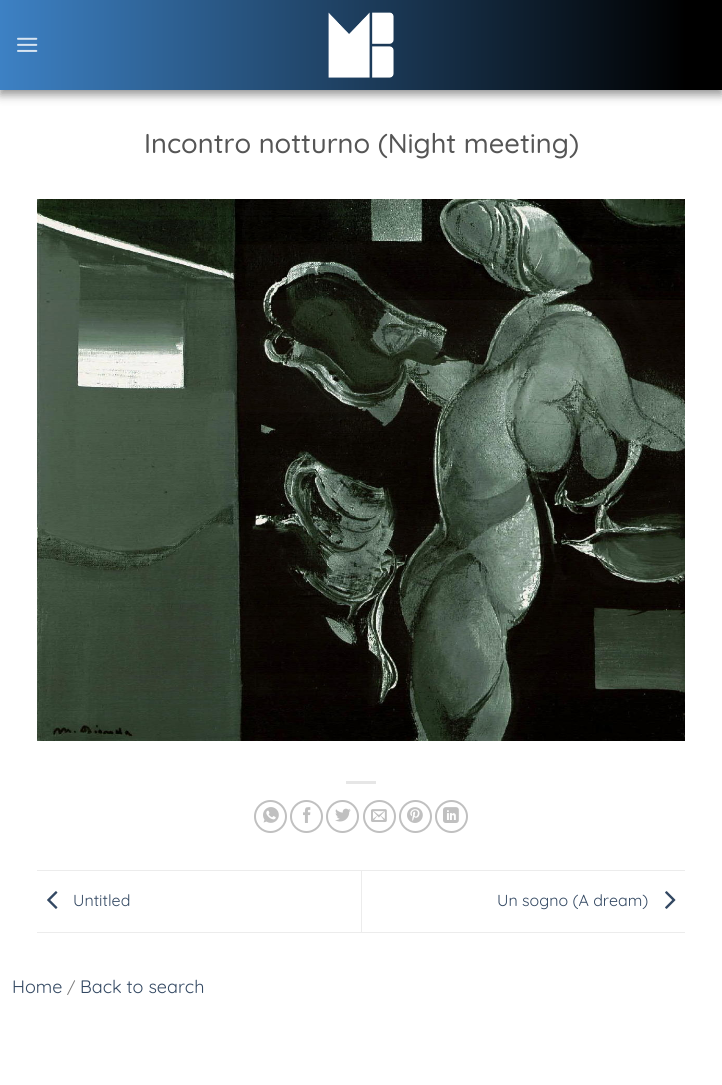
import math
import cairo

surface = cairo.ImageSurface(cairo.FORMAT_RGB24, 722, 1085)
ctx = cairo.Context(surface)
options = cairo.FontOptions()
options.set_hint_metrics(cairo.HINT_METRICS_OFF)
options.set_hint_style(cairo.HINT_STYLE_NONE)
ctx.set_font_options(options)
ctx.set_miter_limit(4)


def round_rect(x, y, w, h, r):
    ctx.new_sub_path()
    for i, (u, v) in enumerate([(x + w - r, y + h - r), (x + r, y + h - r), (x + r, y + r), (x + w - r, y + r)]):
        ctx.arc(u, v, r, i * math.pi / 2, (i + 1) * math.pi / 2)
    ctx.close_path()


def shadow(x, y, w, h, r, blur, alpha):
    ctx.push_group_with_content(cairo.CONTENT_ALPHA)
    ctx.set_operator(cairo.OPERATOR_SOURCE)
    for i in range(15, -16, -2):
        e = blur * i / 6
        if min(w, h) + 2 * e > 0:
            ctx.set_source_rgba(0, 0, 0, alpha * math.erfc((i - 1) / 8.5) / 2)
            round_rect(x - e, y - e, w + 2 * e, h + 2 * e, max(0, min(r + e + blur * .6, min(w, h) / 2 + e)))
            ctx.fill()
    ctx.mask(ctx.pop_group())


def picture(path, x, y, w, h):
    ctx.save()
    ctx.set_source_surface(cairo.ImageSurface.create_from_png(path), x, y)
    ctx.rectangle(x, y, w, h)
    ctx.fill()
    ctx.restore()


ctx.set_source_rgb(1, 1, 1)
ctx.paint()
ctx.set_source_rgb(0, 0, 0)
shadow(0, 5, 722, 90, 0, 5, 0.35)
shadow(1, 1, 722, 90, 0, 5, 0.15)
gradient = cairo.LinearGradient(722, 45, 0, 45)
gradient.add_color_stop_rgba(0.05, 0, 0, 0, 1)
gradient.add_color_stop_rgba(1, 0.239, 0.506, 0.769, 1)
ctx.set_source(gradient)
ctx.rectangle(0, 0, 722, 90)
ctx.fill()
picture("img1.png", 17, 37, 21, 15)
picture("img2.png", 328, 12, 66, 66)
ctx.select_font_face("Quicksand Medium")
ctx.set_font_size(27.25)
ctx.set_source_rgb(0.333, 0.333, 0.333)
ctx.move_to(144, 153)
ctx.show_text("Incontro notturno (Night meeting)")
picture("img3.png", 37, 199, 648, 542)
ctx.set_source_rgb(0.902, 0.902, 0.902)
ctx.rectangle(346, 781, 30, 3)
ctx.fill()
ctx.arc(270.5, 816.5, 15.5, 0, 2 * math.pi)
ctx.set_source_rgb(0.753, 0.753, 0.753)
ctx.stroke()
picture("img4.png", 263, 807, 16, 16)
ctx.arc(306.5, 816.5, 15.5, 0, 2 * math.pi)
ctx.stroke()
picture("img5.png", 303, 807, 8, 16)
ctx.arc(342.5, 816.5, 15.5, 0, 2 * math.pi)
ctx.stroke()
picture("img6.png", 335, 808, 16, 14)
ctx.arc(379.5, 816.5, 15.5, 0, 2 * math.pi)
ctx.stroke()
picture("img7.png", 371, 809, 16, 13)
ctx.arc(415.5, 816.5, 15.5, 0, 2 * math.pi)
ctx.stroke()
picture("img8.png", 407, 807, 16, 16)
ctx.arc(451.5, 816.5, 15.5, 0, 2 * math.pi)
ctx.stroke()
picture("img9.png", 443, 807, 16, 16)
ctx.set_source_rgb(0.925, 0.925, 0.925)
ctx.rectangle(37, 870, 648, 1)
ctx.fill()
ctx.rectangle(37, 932, 648, 1)
ctx.fill()
picture("img10.png", 47, 891, 11, 18)
ctx.select_font_face("Quicksand")
ctx.set_font_size(16)
ctx.set_source_rgb(0.2, 0.282, 0.384)
ctx.move_to(73, 906)
ctx.show_text("Untitled")
ctx.set_source_rgb(0.925, 0.925, 0.925)
ctx.rectangle(361, 871, 1, 61)
ctx.fill()
ctx.set_source_rgb(0.2, 0.282, 0.384)
ctx.move_to(497, 906)
ctx.show_text("Un sogno (A dream)")
picture("img11.png", 665, 891, 11, 18)
ctx.set_font_size(18)
ctx.move_to(12, 993)
ctx.show_text("Home")
ctx.set_font_size(16)
ctx.set_source_rgb(0.467, 0.467, 0.467)
ctx.move_to(67, 993)
ctx.show_text("/")
ctx.set_font_size(18)
ctx.set_source_rgb(0.2, 0.282, 0.384)
ctx.move_to(80, 993)
ctx.show_text("Back to search")
surface.write_to_png("page.png")
